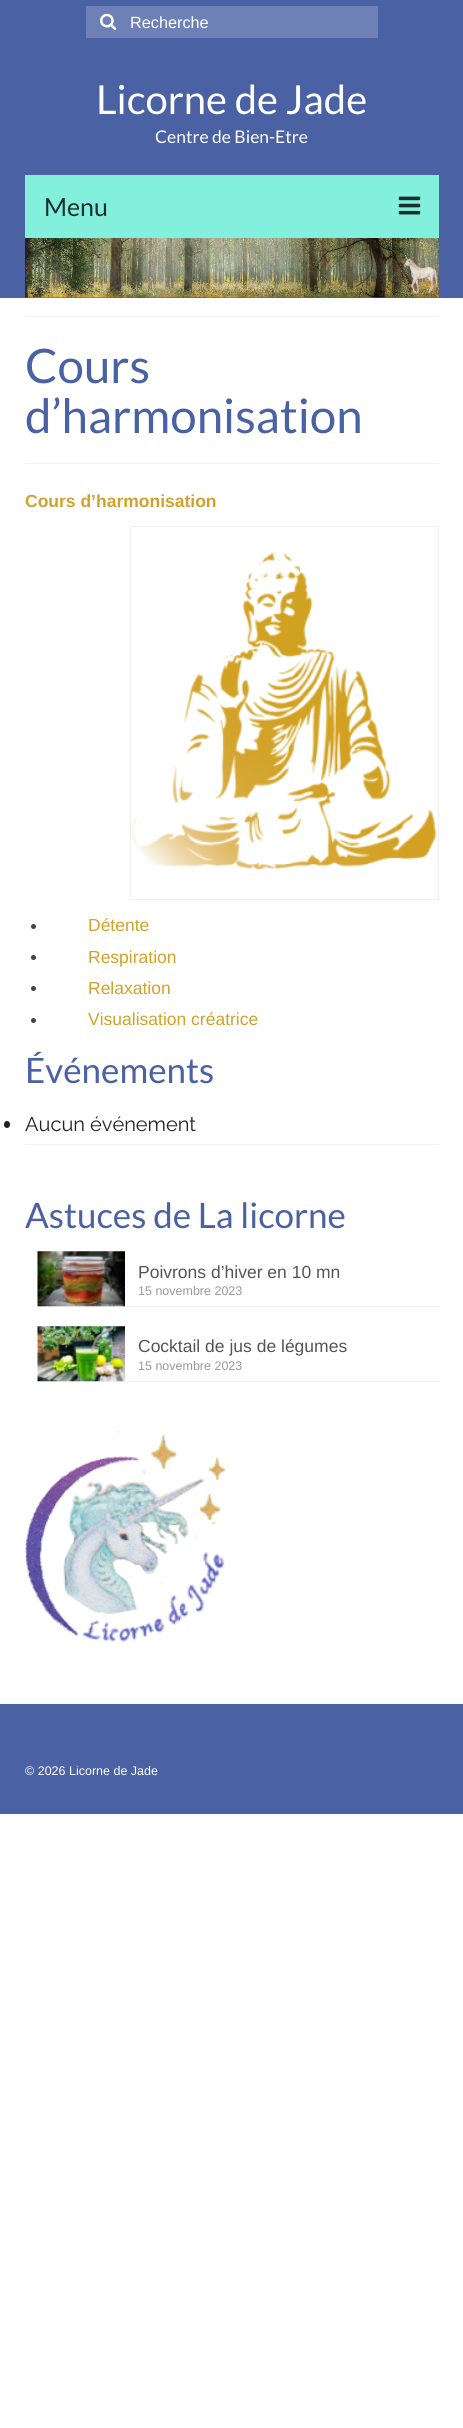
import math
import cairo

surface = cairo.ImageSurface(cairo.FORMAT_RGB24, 463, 2428)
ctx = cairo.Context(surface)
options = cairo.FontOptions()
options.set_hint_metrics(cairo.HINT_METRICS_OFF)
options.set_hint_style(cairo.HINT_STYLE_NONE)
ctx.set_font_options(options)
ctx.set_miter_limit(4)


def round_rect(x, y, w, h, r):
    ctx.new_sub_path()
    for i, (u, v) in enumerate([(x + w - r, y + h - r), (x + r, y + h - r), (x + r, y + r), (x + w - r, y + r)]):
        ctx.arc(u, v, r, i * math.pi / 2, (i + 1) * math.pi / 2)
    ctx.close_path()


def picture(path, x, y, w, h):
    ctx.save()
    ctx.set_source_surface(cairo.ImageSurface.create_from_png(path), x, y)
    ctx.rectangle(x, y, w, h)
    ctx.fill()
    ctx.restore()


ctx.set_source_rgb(1, 1, 1)
ctx.paint()
ctx.set_source_rgb(0.29, 0.38, 0.643)
ctx.rectangle(0, 0, 463, 298)
ctx.fill()
ctx.set_source_rgb(0.431, 0.506, 0.714)
ctx.rectangle(86, 6, 292, 32)
ctx.fill()
picture("img1.png", 100, 13, 17, 17)
ctx.select_font_face("Liberation Sans")
ctx.set_font_size(16.25)
ctx.set_source_rgb(1, 1, 1)
ctx.move_to(130, 28)
ctx.show_text("Recherche")
ctx.select_font_face("Lato")
ctx.set_font_size(40)
ctx.move_to(96, 114)
ctx.show_text("Licorne de Jade")
ctx.set_font_size(17.5)
ctx.move_to(155, 143)
ctx.show_text("Centre de Bien-Etre")
ctx.set_source_rgb(0.514, 0.937, 0.867)
ctx.rectangle(25, 175, 414, 63)
ctx.fill()
ctx.set_font_size(25)
ctx.set_source_rgb(0.102, 0.188, 0.173)
ctx.move_to(44, 216)
ctx.show_text("Menu")
picture("img2.png", 398, 196, 23, 19)
picture("img3.png", 25, 238, 414, 60)
ctx.set_source_rgb(0.949, 0.949, 0.949)
ctx.rectangle(25, 316, 414, 1)
ctx.fill()
ctx.rectangle(25, 463, 414, 1)
ctx.fill()
ctx.set_font_size(47.5)
ctx.set_source_rgb(0.29, 0.38, 0.643)
ctx.move_to(25, 383)
ctx.show_text("Cours")
ctx.move_to(25, 433)
ctx.show_text("d’harmonisation")
ctx.select_font_face("Liberation Sans", cairo.FONT_SLANT_NORMAL, cairo.FONT_WEIGHT_BOLD)
ctx.set_font_size(17.5)
ctx.set_source_rgb(0.82, 0.635, 0.165)
ctx.move_to(25, 507)
ctx.show_text("Cours d’harmonisation")
ctx.rectangle(130.5, 526.5, 308, 373)
ctx.set_source_rgb(0.945, 0.945, 0.945)
ctx.set_line_width(1)
ctx.stroke()
picture("img4.png", 131, 552, 306, 318)
ctx.set_source_rgb(0.267, 0.267, 0.267)
ctx.arc(33.5, 926.5, 2.5, 0, 2 * math.pi)
ctx.fill()
ctx.select_font_face("Liberation Sans")
ctx.set_source_rgb(0.82, 0.635, 0.165)
ctx.move_to(88, 931)
ctx.show_text("Détente")
ctx.set_source_rgb(0.267, 0.267, 0.267)
ctx.new_path()
ctx.arc(33.5, 957.5, 2.5, 0, 2 * math.pi)
ctx.fill()
ctx.set_source_rgb(0.82, 0.635, 0.165)
ctx.move_to(88, 963)
ctx.show_text("Respiration")
ctx.set_source_rgb(0.267, 0.267, 0.267)
ctx.new_path()
ctx.arc(33.5, 988.5, 2.5, 0, 2 * math.pi)
ctx.fill()
ctx.set_source_rgb(0.82, 0.635, 0.165)
ctx.move_to(88, 994)
ctx.show_text("Relaxation")
ctx.set_source_rgb(0.267, 0.267, 0.267)
ctx.new_path()
ctx.arc(33.5, 1020.5, 2.5, 0, 2 * math.pi)
ctx.fill()
ctx.set_source_rgb(0.82, 0.635, 0.165)
ctx.move_to(88, 1025)
ctx.show_text("Visualisation créatrice")
ctx.select_font_face("Lato")
ctx.set_font_size(35)
ctx.set_source_rgb(0.29, 0.38, 0.643)
ctx.move_to(25, 1083)
ctx.show_text("Événements")
ctx.set_source_rgb(0.949, 0.949, 0.949)
ctx.rectangle(25, 1144, 414, 1)
ctx.fill()
ctx.set_source_rgb(0.129, 0.129, 0.129)
round_rect(4, 1121, 6, 7, 3)
ctx.fill()
ctx.select_font_face("Raleway")
ctx.set_font_size(20)
ctx.move_to(25, 1131)
ctx.show_text("Aucun événement")
ctx.select_font_face("Lato")
ctx.set_font_size(35)
ctx.set_source_rgb(0.29, 0.38, 0.643)
ctx.move_to(25, 1228)
ctx.show_text("Astuces de La licorne")
ctx.set_source_rgb(0.949, 0.949, 0.949)
ctx.rectangle(38, 1306, 401, 1)
ctx.fill()
picture("img5.png", 37, 1251, 88, 56)
ctx.select_font_face("Liberation Sans")
ctx.set_font_size(17.5)
ctx.set_source_rgb(0.333, 0.333, 0.333)
ctx.move_to(138, 1278)
ctx.show_text("Poivrons d’hiver en 10 mn")
ctx.set_font_size(12.5)
ctx.set_source_rgb(0.6, 0.6, 0.6)
ctx.move_to(138, 1295)
ctx.show_text("15 novembre 2023")
ctx.set_source_rgb(0.949, 0.949, 0.949)
ctx.rectangle(38, 1381, 401, 1)
ctx.fill()
picture("img6.png", 37, 1326, 88, 56)
ctx.set_font_size(17.5)
ctx.set_source_rgb(0.333, 0.333, 0.333)
ctx.move_to(138, 1352)
ctx.show_text("Cocktail de jus de légumes")
ctx.set_font_size(12.5)
ctx.set_source_rgb(0.6, 0.6, 0.6)
ctx.move_to(138, 1370)
ctx.show_text("15 novembre 2023")
picture("img7.png", 25, 1431, 201, 212)
ctx.set_source_rgb(0.29, 0.38, 0.643)
ctx.rectangle(0, 1704, 463, 110)
ctx.fill()
ctx.set_source_rgb(1, 1, 1)
ctx.move_to(25, 1775)
ctx.show_text("© 2026 Licorne de Jade")
surface.write_to_png("page.png")
